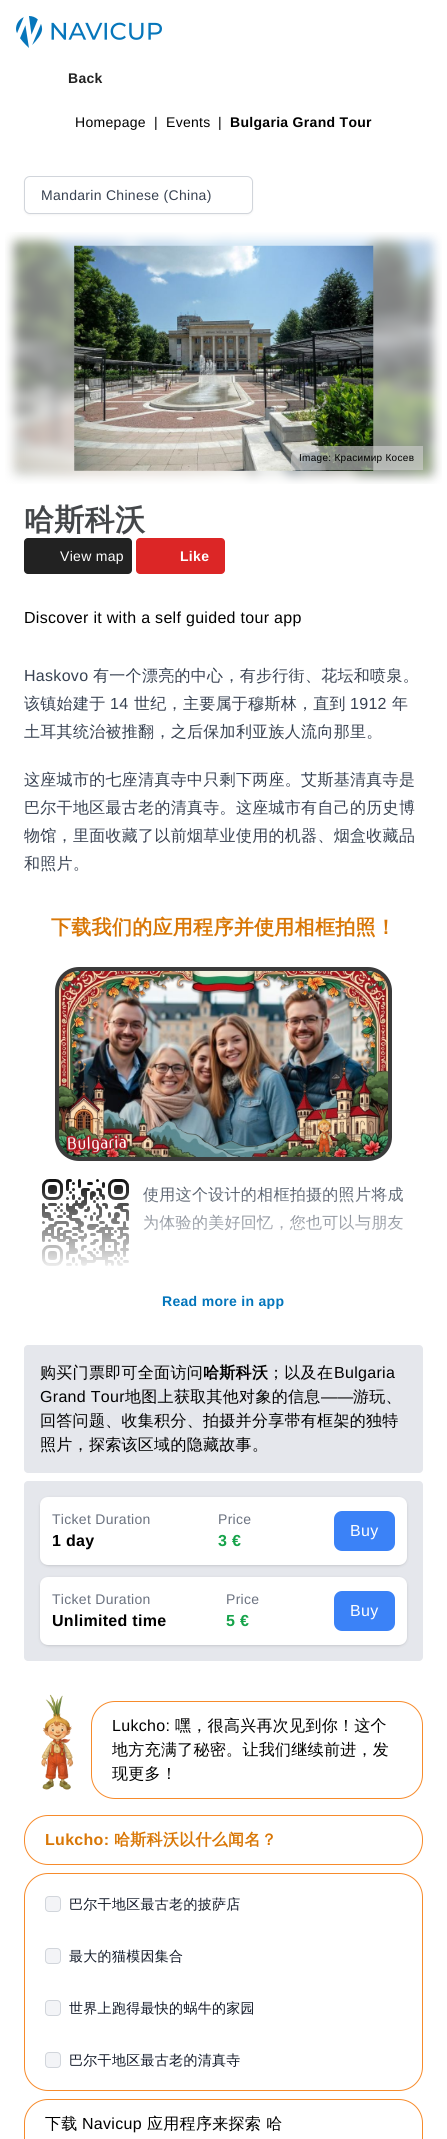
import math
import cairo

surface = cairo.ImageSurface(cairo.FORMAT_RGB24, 447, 2139)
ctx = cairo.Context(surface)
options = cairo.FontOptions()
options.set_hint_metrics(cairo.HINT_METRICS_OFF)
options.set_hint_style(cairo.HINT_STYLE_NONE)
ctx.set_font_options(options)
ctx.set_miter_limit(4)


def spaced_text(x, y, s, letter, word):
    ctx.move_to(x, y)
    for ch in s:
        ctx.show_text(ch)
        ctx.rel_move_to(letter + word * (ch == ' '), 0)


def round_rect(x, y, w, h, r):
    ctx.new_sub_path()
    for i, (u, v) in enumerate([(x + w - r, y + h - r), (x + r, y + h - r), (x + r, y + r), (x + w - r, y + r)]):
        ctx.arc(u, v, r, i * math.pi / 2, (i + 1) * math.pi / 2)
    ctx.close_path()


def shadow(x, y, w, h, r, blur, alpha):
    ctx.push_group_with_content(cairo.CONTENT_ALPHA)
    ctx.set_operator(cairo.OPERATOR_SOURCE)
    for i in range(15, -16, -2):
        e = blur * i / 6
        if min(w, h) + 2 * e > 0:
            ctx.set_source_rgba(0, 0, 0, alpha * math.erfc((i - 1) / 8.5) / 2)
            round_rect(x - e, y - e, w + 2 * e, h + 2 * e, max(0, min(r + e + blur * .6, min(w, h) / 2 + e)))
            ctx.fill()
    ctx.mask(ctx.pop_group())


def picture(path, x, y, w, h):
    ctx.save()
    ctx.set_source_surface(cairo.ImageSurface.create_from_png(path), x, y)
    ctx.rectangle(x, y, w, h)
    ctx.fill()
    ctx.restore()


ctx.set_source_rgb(1, 1, 1)
ctx.paint()
picture("img1.png", 16, 16, 146, 32)
ctx.select_font_face("Liberation Sans", cairo.FONT_SLANT_NORMAL, cairo.FONT_WEIGHT_BOLD)
ctx.set_font_size(14)
ctx.set_source_rgb(0.133, 0.133, 0.133)
spaced_text(68, 83, "Back", 0.3, 0)
ctx.select_font_face("Liberation Sans")
ctx.set_source_rgb(0, 0, 0)
spaced_text(75, 127, "Homepage", 0.3, 0)
spaced_text(154, 127, "|", 0.3, 0)
spaced_text(166, 127, "Events", 0.3, 0)
spaced_text(218, 127, "|", 0.3, 0)
ctx.select_font_face("Liberation Sans", cairo.FONT_SLANT_NORMAL, cairo.FONT_WEIGHT_BOLD)
spaced_text(230, 127, "Bulgaria Grand Tour", 0.3, 0)
ctx.set_source_rgb(0, 0, 0)
shadow(24, 177, 229, 38, 6, 1, 0.05)
ctx.set_source_rgb(1, 1, 1)
round_rect(24.5, 176.5, 228, 37, 5.5)
ctx.fill_preserve()
ctx.set_source_rgb(0.82, 0.835, 0.859)
ctx.set_line_width(1)
ctx.stroke()
ctx.select_font_face("Liberation Sans")
ctx.set_source_rgb(0.216, 0.255, 0.318)
spaced_text(41, 200, "Mandarin Chinese (China)", 0.3, 0)
picture("img2.png", 5, 232, 437, 252)
picture("img3.png", 74, 245, 300, 226)
ctx.set_source_rgba(0.82, 0.82, 0.82, 0.61)
ctx.new_path()
ctx.move_to(303, 446)
ctx.line_to(423, 446)
ctx.line_to(423, 470)
ctx.line_to(291, 470)
ctx.line_to(291, 458)
ctx.curve_to(291, 451.5, 296.5, 446, 303, 446)
ctx.close_path()
ctx.fill()
ctx.set_font_size(10)
ctx.set_source_rgb(0, 0, 0)
spaced_text(299, 461, "Image: Красимир Косев", 0.3, 0)
ctx.select_font_face("WenQuanYi Zen Hei", cairo.FONT_SLANT_NORMAL, cairo.FONT_WEIGHT_BOLD)
ctx.set_font_size(30)
ctx.set_source_rgb(0.267, 0.278, 0.29)
spaced_text(24, 530, "哈斯科沃", 0.3, 0)
ctx.set_source_rgb(0.133, 0.133, 0.133)
round_rect(24, 538, 108, 36, 4)
ctx.fill()
ctx.select_font_face("Liberation Sans")
ctx.set_font_size(14)
ctx.set_source_rgb(1, 1, 1)
spaced_text(60, 561, "View map", 0.3, 0)
ctx.set_source_rgb(0.863, 0.149, 0.149)
round_rect(136, 538, 89, 36, 4)
ctx.fill()
ctx.select_font_face("Liberation Sans", cairo.FONT_SLANT_NORMAL, cairo.FONT_WEIGHT_BOLD)
ctx.set_source_rgb(1, 1, 1)
spaced_text(180, 561, "Like", 0.3, 0)
ctx.select_font_face("Liberation Sans")
ctx.set_font_size(16)
ctx.set_source_rgb(0, 0, 0)
spaced_text(24, 623, "Discover it with a self guided tour app", 0.3, 0)
ctx.set_source_rgb(0.216, 0.255, 0.318)
spaced_text(24, 681, "Haskovo", 0.3, 0)
ctx.select_font_face("WenQuanYi Zen Hei Medium")
spaced_text(93, 681, "有一个漂亮的中心，有步行街、花坛和喷泉。", 0.3, 0)
spaced_text(24, 709, "该镇始建于", 0.3, 0)
ctx.select_font_face("Liberation Sans")
spaced_text(110, 709, "14", 0.3, 0)
ctx.select_font_face("WenQuanYi Zen Hei Medium")
spaced_text(134, 709, "世纪，主要属于穆斯林，直到", 0.3, 0)
ctx.select_font_face("Liberation Sans")
spaced_text(350, 709, "1912", 0.3, 0)
ctx.select_font_face("WenQuanYi Zen Hei Medium")
spaced_text(392, 709, "年", 0.3, 0)
spaced_text(24, 737, "土耳其统治被推翻，之后保加利亚族人流向那里。", 0.3, 0)
spaced_text(24, 785, "这座城市的七座清真寺中只剩下两座。艾斯基清真寺是", 0.3, 0)
spaced_text(24, 813, "巴尔干地区最古老的清真寺。这座城市有自己的历史博", 0.3, 0)
spaced_text(24, 841, "物馆，里面收藏了以前烟草业使用的机器、烟盒收藏品", 0.3, 0)
spaced_text(24, 869, "和照片。", 0.3, 0)
ctx.select_font_face("WenQuanYi Zen Hei", cairo.FONT_SLANT_NORMAL, cairo.FONT_WEIGHT_BOLD)
ctx.set_font_size(20)
ctx.set_source_rgb(0.851, 0.467, 0.024)
spaced_text(51, 934, "下载我们的应用程序并使用相框拍照！", 0.3, 0)
ctx.set_source_rgb(0.231, 0.231, 0.231)
round_rect(55, 967, 337, 194, 24)
ctx.fill()
picture("img4.png", 59, 971, 329, 186)
picture("img5.png", 42, 1179, 87, 87)
ctx.select_font_face("WenQuanYi Zen Hei Medium")
ctx.set_font_size(16)
ctx.set_source_rgb(0.216, 0.255, 0.318)
spaced_text(143, 1200, "使用这个设计的相框拍摄的照片将成", 0.3, 0)
spaced_text(143, 1228, "为体验的美好回忆，您也可以与朋友", 0.3, 0)
gradient = cairo.LinearGradient(224, 1173, 224, 1273)
gradient.add_color_stop_rgba(0, 1, 1, 1, 0)
gradient.add_color_stop_rgba(1, 1, 1, 1, 1)
ctx.set_source(gradient)
ctx.rectangle(42, 1179, 361, 87)
ctx.fill()
ctx.select_font_face("Liberation Sans", cairo.FONT_SLANT_NORMAL, cairo.FONT_WEIGHT_BOLD)
ctx.set_font_size(14)
ctx.set_source_rgb(0.008, 0.459, 0.733)
spaced_text(162, 1306, "Read more in app", 0.3, 0)
ctx.set_source_rgb(0.898, 0.906, 0.922)
round_rect(24, 1345, 399, 128, 4)
ctx.fill()
ctx.select_font_face("WenQuanYi Zen Hei Medium")
ctx.set_font_size(16)
ctx.set_source_rgb(0, 0, 0)
spaced_text(40, 1378, "购买门票即可全面访问", 0.3, 0)
ctx.select_font_face("WenQuanYi Zen Hei", cairo.FONT_SLANT_NORMAL, cairo.FONT_WEIGHT_BOLD)
spaced_text(203, 1378, "哈斯科沃", 0.3, 0)
ctx.select_font_face("WenQuanYi Zen Hei Medium")
spaced_text(268, 1378, "；以及在", 0.3, 0)
ctx.select_font_face("Liberation Sans")
spaced_text(334, 1378, "Bulgaria", 0.3, 0)
spaced_text(40, 1402, "Grand Tour", 0.3, 0)
ctx.select_font_face("WenQuanYi Zen Hei Medium")
spaced_text(125, 1402, "地图上获取其他对象的信息", 0.3, 0)
ctx.select_font_face("Liberation Sans")
spaced_text(321, 1402, "——", 0.3, 0)
ctx.select_font_face("WenQuanYi Zen Hei Medium")
spaced_text(353, 1402, "游玩、", 0.3, 0)
spaced_text(40, 1426, "回答问题、收集积分、拍摄并分享带有框架的独特", 0.3, 0)
spaced_text(40, 1450, "照片，探索该区域的隐藏故事。", 0.3, 0)
ctx.set_source_rgb(0.898, 0.906, 0.922)
round_rect(24, 1481, 399, 180, 4)
ctx.fill()
ctx.set_source_rgb(0, 0, 0)
shadow(41, 1499, 365, 66, 7, 1, 0.1)
shadow(40, 1498, 367, 68, 8, 1.5, 0.1)
ctx.set_source_rgb(1, 1, 1)
round_rect(40, 1497, 367, 68, 8)
ctx.fill()
ctx.select_font_face("Liberation Sans")
ctx.set_font_size(14)
ctx.set_source_rgb(0.42, 0.447, 0.502)
spaced_text(52, 1524, "Ticket Duration", 0.3, 0)
ctx.select_font_face("Liberation Sans", cairo.FONT_SLANT_NORMAL, cairo.FONT_WEIGHT_BOLD)
ctx.set_font_size(16)
ctx.set_source_rgb(0, 0, 0)
spaced_text(52, 1546, "1 day", 0.3, 0)
ctx.select_font_face("Liberation Sans")
ctx.set_font_size(14)
ctx.set_source_rgb(0.42, 0.447, 0.502)
spaced_text(218, 1524, "Price", 0.3, 0)
ctx.select_font_face("Liberation Sans", cairo.FONT_SLANT_NORMAL, cairo.FONT_WEIGHT_BOLD)
ctx.set_font_size(16)
ctx.set_source_rgb(0.086, 0.639, 0.29)
spaced_text(218, 1546, "3 €", 0.3, 0)
ctx.set_source_rgb(0.231, 0.51, 0.965)
round_rect(334, 1511, 61, 40, 8)
ctx.fill()
ctx.select_font_face("Liberation Sans")
ctx.set_source_rgb(1, 1, 1)
spaced_text(350, 1536, "Buy", 0.3, 0)
ctx.set_source_rgb(0, 0, 0)
shadow(41, 1579, 365, 66, 7, 1, 0.1)
shadow(40, 1578, 367, 68, 8, 1.5, 0.1)
ctx.set_source_rgb(1, 1, 1)
round_rect(40, 1577, 367, 68, 8)
ctx.fill()
ctx.set_font_size(14)
ctx.set_source_rgb(0.42, 0.447, 0.502)
spaced_text(52, 1604, "Ticket Duration", 0.3, 0)
ctx.select_font_face("Liberation Sans", cairo.FONT_SLANT_NORMAL, cairo.FONT_WEIGHT_BOLD)
ctx.set_font_size(16)
ctx.set_source_rgb(0, 0, 0)
spaced_text(52, 1626, "Unlimited time", 0.3, 0)
ctx.select_font_face("Liberation Sans")
ctx.set_font_size(14)
ctx.set_source_rgb(0.42, 0.447, 0.502)
spaced_text(226, 1604, "Price", 0.3, 0)
ctx.select_font_face("Liberation Sans", cairo.FONT_SLANT_NORMAL, cairo.FONT_WEIGHT_BOLD)
ctx.set_font_size(16)
ctx.set_source_rgb(0.086, 0.639, 0.29)
spaced_text(226, 1626, "5 €", 0.3, 0)
ctx.set_source_rgb(0.231, 0.51, 0.965)
round_rect(334, 1591, 61, 40, 8)
ctx.fill()
ctx.select_font_face("Liberation Sans")
ctx.set_source_rgb(1, 1, 1)
spaced_text(350, 1616, "Buy", 0.3, 0)
picture("img6.png", 41, 1694, 33, 96)
round_rect(91.5, 1701.5, 331, 97, 23.5)
ctx.set_source_rgb(0.965, 0.545, 0.169)
ctx.stroke()
ctx.set_source_rgb(0, 0, 0)
spaced_text(112, 1731, "Lukcho:", 0.3, 0)
ctx.select_font_face("WenQuanYi Zen Hei Medium")
spaced_text(175, 1731, "嘿，很高兴再次见到你！这个", 0.3, 0)
spaced_text(112, 1755, "地方充满了秘密。让我们继续前进，发", 0.3, 0)
spaced_text(112, 1779, "现更多！", 0.3, 0)
round_rect(24.5, 1815.5, 398, 49, 23.5)
ctx.set_source_rgb(0.965, 0.545, 0.169)
ctx.stroke()
ctx.select_font_face("Liberation Sans", cairo.FONT_SLANT_NORMAL, cairo.FONT_WEIGHT_BOLD)
ctx.set_source_rgb(0.851, 0.467, 0.024)
spaced_text(45, 1845, "Lukcho:", 0.3, 0)
ctx.select_font_face("WenQuanYi Zen Hei", cairo.FONT_SLANT_NORMAL, cairo.FONT_WEIGHT_BOLD)
spaced_text(114, 1845, "哈斯科沃以什么闻名？", 0.3, 0)
round_rect(24.5, 1873.5, 398, 217, 23.5)
ctx.set_source_rgb(0.965, 0.545, 0.169)
ctx.stroke()
ctx.set_source_rgb(0.953, 0.957, 0.965)
round_rect(45.5, 1896.5, 15, 15, 3.5)
ctx.fill_preserve()
ctx.set_source_rgb(0.82, 0.835, 0.859)
ctx.stroke()
ctx.select_font_face("WenQuanYi Zen Hei Medium")
ctx.set_font_size(14)
ctx.set_source_rgb(0.067, 0.094, 0.153)
spaced_text(69, 1909, "巴尔干地区最古老的披萨店", 0.3, 0)
ctx.set_source_rgb(0.953, 0.957, 0.965)
round_rect(45.5, 1948.5, 15, 15, 3.5)
ctx.fill_preserve()
ctx.set_source_rgb(0.82, 0.835, 0.859)
ctx.stroke()
ctx.set_source_rgb(0.067, 0.094, 0.153)
spaced_text(69, 1961, "最大的猫模因集合", 0.3, 0)
ctx.set_source_rgb(0.953, 0.957, 0.965)
round_rect(45.5, 2000.5, 15, 15, 3.5)
ctx.fill_preserve()
ctx.set_source_rgb(0.82, 0.835, 0.859)
ctx.stroke()
ctx.set_source_rgb(0.067, 0.094, 0.153)
spaced_text(69, 2013, "世界上跑得最快的蜗牛的家园", 0.3, 0)
ctx.set_source_rgb(0.953, 0.957, 0.965)
round_rect(45.5, 2052.5, 15, 15, 3.5)
ctx.fill_preserve()
ctx.set_source_rgb(0.82, 0.835, 0.859)
ctx.stroke()
ctx.set_source_rgb(0.067, 0.094, 0.153)
spaced_text(69, 2065, "巴尔干地区最古老的清真寺", 0.3, 0)
round_rect(24.5, 2099.5, 398, 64, 23.5)
ctx.set_source_rgb(0.965, 0.545, 0.169)
ctx.stroke()
ctx.set_font_size(16)
ctx.set_source_rgb(0, 0, 0)
spaced_text(45, 2129, "下载", 0.3, 0)
ctx.select_font_face("Liberation Sans")
spaced_text(82, 2129, "Navicup", 0.3, 0)
ctx.select_font_face("WenQuanYi Zen Hei Medium")
spaced_text(147, 2129, "应用程序来探索 哈", 0.3, 0)
surface.write_to_png("page.png")
